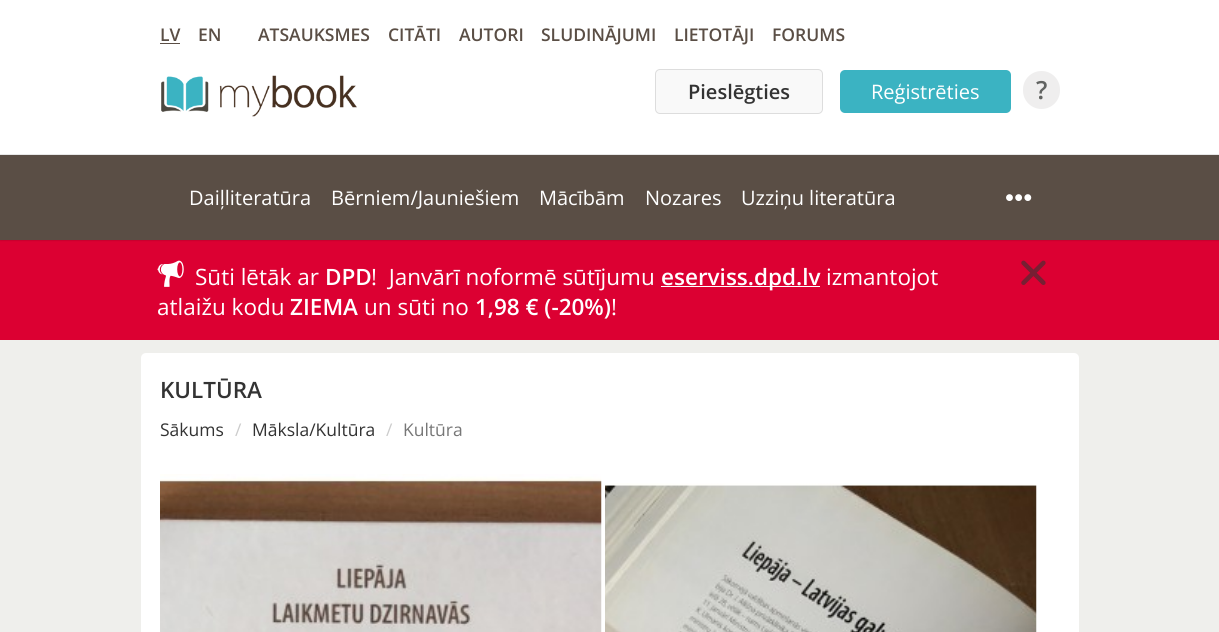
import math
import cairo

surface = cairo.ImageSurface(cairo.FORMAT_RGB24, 1219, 632)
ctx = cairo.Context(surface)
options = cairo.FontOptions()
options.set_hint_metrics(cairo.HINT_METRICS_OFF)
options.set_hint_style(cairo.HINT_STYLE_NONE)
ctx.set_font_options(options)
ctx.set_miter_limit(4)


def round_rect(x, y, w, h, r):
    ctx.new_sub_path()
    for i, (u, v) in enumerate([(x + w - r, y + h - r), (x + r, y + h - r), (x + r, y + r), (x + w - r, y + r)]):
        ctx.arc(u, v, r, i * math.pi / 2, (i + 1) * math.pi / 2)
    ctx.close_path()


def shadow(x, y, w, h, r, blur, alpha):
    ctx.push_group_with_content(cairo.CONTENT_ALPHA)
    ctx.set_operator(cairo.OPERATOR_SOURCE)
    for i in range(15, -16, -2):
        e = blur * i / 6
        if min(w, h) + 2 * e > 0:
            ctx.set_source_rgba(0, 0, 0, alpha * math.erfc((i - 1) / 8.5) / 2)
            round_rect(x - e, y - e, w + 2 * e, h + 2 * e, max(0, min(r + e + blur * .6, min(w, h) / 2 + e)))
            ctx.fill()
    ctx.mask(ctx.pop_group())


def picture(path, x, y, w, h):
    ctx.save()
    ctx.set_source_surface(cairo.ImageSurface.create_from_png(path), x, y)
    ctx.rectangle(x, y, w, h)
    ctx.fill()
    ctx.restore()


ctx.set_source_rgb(0.937, 0.937, 0.922)
ctx.paint()
ctx.set_source_rgb(1, 1, 1)
ctx.rectangle(0, 0, 1219, 154)
ctx.fill()
ctx.select_font_face("Open Sans SemiBold")
ctx.set_font_size(17.5)
ctx.set_source_rgb(0.353, 0.306, 0.271)
ctx.move_to(160, 41)
ctx.show_text("LV")
ctx.rectangle(160, 43, 20, 1)
ctx.fill()
ctx.move_to(198, 41)
ctx.show_text("EN")
ctx.move_to(258, 41)
ctx.show_text("ATSAUKSMES")
ctx.move_to(388, 41)
ctx.show_text("CITĀTI")
ctx.move_to(459, 41)
ctx.show_text("AUTORI")
ctx.move_to(541, 41)
ctx.show_text("SLUDINĀJUMI")
ctx.move_to(674, 41)
ctx.show_text("LIETOTĀJI")
ctx.move_to(772, 41)
ctx.show_text("FORUMS")
picture("img1.png", 161, 75, 196, 42)
ctx.set_source_rgb(0.973, 0.973, 0.973)
round_rect(655.5, 69.5, 167, 44, 4.5)
ctx.fill_preserve()
ctx.set_source_rgb(0.867, 0.867, 0.867)
ctx.set_line_width(1)
ctx.stroke()
ctx.set_font_size(20)
ctx.set_source_rgb(0.2, 0.2, 0.2)
ctx.move_to(688, 99)
ctx.show_text("Pieslēgties")
ctx.set_source_rgb(0.231, 0.702, 0.761)
round_rect(840, 70, 171, 43, 5)
ctx.fill()
ctx.select_font_face("Open Sans")
ctx.set_source_rgb(1, 1, 1)
ctx.move_to(871, 99)
ctx.show_text("Reģistrēties")
ctx.set_source_rgb(0.937, 0.933, 0.933)
round_rect(1023, 71, 37, 38, 18.5)
ctx.fill()
ctx.select_font_face("Open Sans SemiBold")
ctx.set_font_size(25)
ctx.set_source_rgb(0.38, 0.388, 0.38)
ctx.move_to(1036, 99)
ctx.show_text("?")
ctx.set_source_rgb(0.863, 0, 0.196)
ctx.rectangle(0, 240, 1219, 100)
ctx.fill()
ctx.set_source_rgb(0, 0, 0)
shadow(0, 155, 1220, 86, 0, 0.5, 0.1)
ctx.set_source_rgb(0.353, 0.306, 0.271)
ctx.rectangle(0, 155, 1219, 85)
ctx.fill()
ctx.set_source_rgb(0.906, 0.906, 0.906)
ctx.rectangle(0, 154, 1219, 1)
ctx.fill()
ctx.select_font_face("Open Sans")
ctx.set_font_size(20)
ctx.set_source_rgb(1, 1, 1)
ctx.move_to(189, 205)
ctx.show_text("Daiļliteratūra")
ctx.move_to(331, 205)
ctx.show_text("Bērniem/Jauniešiem")
ctx.move_to(539, 205)
ctx.show_text("Mācībām")
ctx.move_to(645, 205)
ctx.show_text("Nozares")
ctx.move_to(741, 205)
ctx.show_text("Uzziņu literatūra")
picture("img2.png", 1006, 194, 26, 7)
picture("img3.png", 157, 260, 27, 27)
ctx.set_font_size(22.5)
ctx.move_to(195, 285)
ctx.show_text("Sūti lētāk ar")
ctx.select_font_face("Open Sans SemiBold")
ctx.move_to(325, 285)
ctx.show_text("DPD")
ctx.select_font_face("Open Sans")
ctx.move_to(371, 285)
ctx.show_text("!  Janvārī noformē sūtījumu")
ctx.rectangle(661, 286, 159, 1)
ctx.fill()
ctx.select_font_face("Open Sans SemiBold")
ctx.move_to(661, 285)
ctx.show_text("eserviss.dpd.lv")
ctx.select_font_face("Open Sans")
ctx.move_to(826, 285)
ctx.show_text("izmantojot")
ctx.move_to(157, 315)
ctx.show_text("atlaižu kodu")
ctx.select_font_face("Open Sans SemiBold")
ctx.move_to(290, 315)
ctx.show_text("ZIEMA")
ctx.select_font_face("Open Sans")
ctx.move_to(364, 315)
ctx.show_text("un sūti no")
ctx.select_font_face("Open Sans SemiBold")
ctx.move_to(475, 315)
ctx.show_text("1,98 € (-20%)")
ctx.select_font_face("Open Sans")
ctx.move_to(611, 315)
ctx.show_text("!")
picture("img4.png", 1021, 260, 25, 25)
round_rect(141, 353, 938, 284, 5)
ctx.fill()
ctx.select_font_face("Open Sans SemiBold")
ctx.set_source_rgb(0.2, 0.2, 0.2)
ctx.move_to(160, 398)
ctx.show_text("KULTŪRA")
ctx.select_font_face("Open Sans")
ctx.set_font_size(17.5)
ctx.move_to(160, 436)
ctx.show_text("Sākums")
ctx.set_source_rgb(0.8, 0.8, 0.8)
ctx.move_to(235, 436)
ctx.show_text("/")
ctx.set_source_rgb(0.2, 0.2, 0.2)
ctx.move_to(252, 436)
ctx.show_text("Māksla/Kultūra")
ctx.set_source_rgb(0.8, 0.8, 0.8)
ctx.move_to(386, 436)
ctx.show_text("/")
ctx.set_source_rgb(0.467, 0.467, 0.467)
ctx.move_to(403, 436)
ctx.show_text("Kultūra")
picture("img5.png", 160, 474, 442, 158)
picture("img6.png", 605, 483, 432, 149)
surface.write_to_png("page.png")
